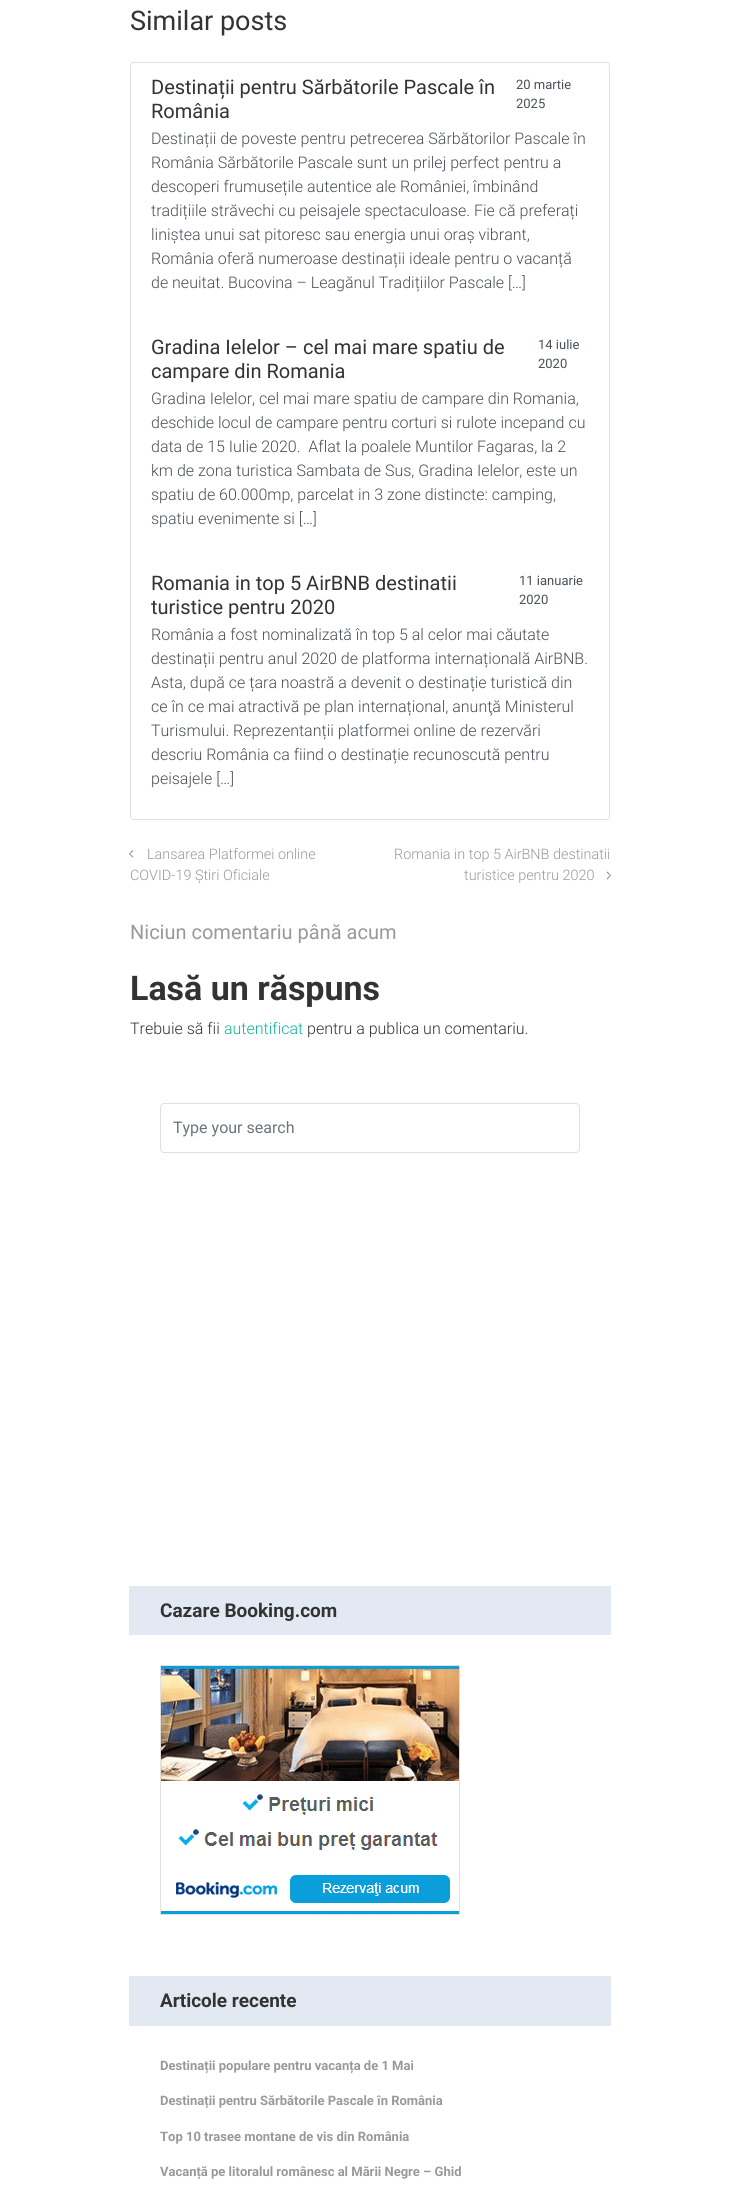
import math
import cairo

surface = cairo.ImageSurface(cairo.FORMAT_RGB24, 740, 2209)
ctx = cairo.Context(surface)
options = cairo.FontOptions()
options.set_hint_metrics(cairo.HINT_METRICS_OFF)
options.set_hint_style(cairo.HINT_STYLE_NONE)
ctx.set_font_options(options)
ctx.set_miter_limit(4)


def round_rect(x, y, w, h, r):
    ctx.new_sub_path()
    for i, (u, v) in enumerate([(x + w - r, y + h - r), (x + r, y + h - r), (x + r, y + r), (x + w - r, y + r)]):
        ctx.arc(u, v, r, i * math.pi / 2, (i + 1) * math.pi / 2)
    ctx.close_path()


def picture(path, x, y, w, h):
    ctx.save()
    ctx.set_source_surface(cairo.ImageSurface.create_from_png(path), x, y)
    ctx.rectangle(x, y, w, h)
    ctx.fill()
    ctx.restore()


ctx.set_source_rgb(1, 1, 1)
ctx.paint()
ctx.select_font_face("Roboto")
ctx.set_font_size(27)
ctx.set_source_rgb(0.2, 0.2, 0.2)
ctx.move_to(130, 30)
ctx.show_text("Similar posts")
ctx.new_path()
ctx.move_to(134, 62.5)
ctx.line_to(606, 62.5)
ctx.curve_to(608, 62.5, 609.5, 64, 609.5, 66)
ctx.line_to(609.5, 323.5)
ctx.line_to(130.5, 323.5)
ctx.line_to(130.5, 66)
ctx.curve_to(130.5, 64, 132, 62.5, 134, 62.5)
ctx.close_path()
ctx.set_source_rgb(0.875, 0.875, 0.875)
ctx.set_line_width(1)
ctx.stroke()
ctx.set_font_size(20)
ctx.set_source_rgb(0.2, 0.2, 0.2)
ctx.move_to(151, 94)
ctx.show_text("Destinații pentru Sărbătorile Pascale în")
ctx.move_to(151, 118)
ctx.show_text("România")
ctx.set_font_size(13)
ctx.set_source_rgb(0.286, 0.314, 0.341)
ctx.move_to(516, 89)
ctx.show_text("20 martie")
ctx.move_to(516, 108)
ctx.show_text("2025")
ctx.select_font_face("Roboto Light")
ctx.set_font_size(16)
ctx.move_to(151, 144)
ctx.show_text("Destinații de poveste pentru petrecerea Sărbătorilor Pascale în")
ctx.move_to(151, 168)
ctx.show_text("România Sărbătorile Pascale sunt un prilej perfect pentru a")
ctx.move_to(151, 192)
ctx.show_text("descoperi frumusețile autentice ale României, îmbinând")
ctx.move_to(151, 216)
ctx.show_text("tradițiile străvechi cu peisajele spectaculoase. Fie că preferați")
ctx.move_to(151, 240)
ctx.show_text("liniștea unui sat pitoresc sau energia unui oraș vibrant,")
ctx.move_to(151, 264)
ctx.show_text("România oferă numeroase destinații ideale pentru o vacanță")
ctx.move_to(151, 288)
ctx.show_text("de neuitat. Bucovina – Leagănul Tradițiilor Pascale […]")
ctx.set_source_rgb(1, 1, 1)
ctx.rectangle(130, 323, 479, 1)
ctx.fill()
ctx.set_source_rgb(0.875, 0.875, 0.875)
ctx.new_path()
ctx.move_to(610, 323)
ctx.line_to(610, 560)
ctx.line_to(609, 559)
ctx.line_to(609, 323)
ctx.close_path()
ctx.fill()
ctx.set_source_rgba(0, 0, 0, 0.12)
ctx.new_path()
ctx.move_to(130, 560)
ctx.line_to(130, 323)
ctx.line_to(131, 323)
ctx.line_to(131, 559)
ctx.close_path()
ctx.fill()
ctx.select_font_face("Roboto")
ctx.set_font_size(20)
ctx.set_source_rgb(0.2, 0.2, 0.2)
ctx.move_to(151, 354)
ctx.show_text("Gradina Ielelor – cel mai mare spatiu de")
ctx.move_to(151, 378)
ctx.show_text("campare din Romania")
ctx.set_font_size(13)
ctx.set_source_rgb(0.286, 0.314, 0.341)
ctx.move_to(538, 349)
ctx.show_text("14 iulie")
ctx.move_to(538, 368)
ctx.show_text("2020")
ctx.select_font_face("Roboto Light")
ctx.set_font_size(16)
ctx.move_to(151, 404)
ctx.show_text("Gradina Ielelor, cel mai mare spatiu de campare din Romania,")
ctx.move_to(151, 428)
ctx.show_text("deschide locul de campare pentru corturi si rulote incepand cu")
ctx.move_to(151, 452)
ctx.show_text("data de 15 Iulie 2020.  Aflat la poalele Muntilor Fagaras, la 2")
ctx.move_to(151, 476)
ctx.show_text("km de zona turistica Sambata de Sus, Gradina Ielelor, este un")
ctx.move_to(151, 500)
ctx.show_text("spatiu de 60.000mp, parcelat in 3 zone distincte: camping,")
ctx.move_to(151, 524)
ctx.show_text("spatiu evenimente si […]")
ctx.set_source_rgb(1, 1, 1)
ctx.new_path()
ctx.move_to(130, 559)
ctx.line_to(610, 559)
ctx.line_to(610, 816)
ctx.curve_to(610, 818, 608, 820, 606, 820)
ctx.line_to(134, 820)
ctx.curve_to(132, 820, 130, 818, 130, 816)
ctx.close_path()
ctx.fill()
ctx.set_source_rgb(0.875, 0.875, 0.875)
ctx.set_fill_rule(cairo.FILL_RULE_EVEN_ODD)
ctx.new_path()
ctx.move_to(130, 559)
ctx.line_to(610, 559)
ctx.line_to(610, 816)
ctx.curve_to(610, 818, 608, 820, 606, 820)
ctx.line_to(134, 820)
ctx.curve_to(132, 820, 130, 818, 130, 816)
ctx.close_path()
ctx.move_to(131, 559)
ctx.line_to(609, 559)
ctx.line_to(609, 816)
ctx.curve_to(609, 818, 608, 819, 606, 819)
ctx.line_to(134, 819)
ctx.curve_to(132, 819, 131, 818, 131, 816)
ctx.close_path()
ctx.fill()
ctx.select_font_face("Roboto")
ctx.set_font_size(20)
ctx.set_source_rgb(0.2, 0.2, 0.2)
ctx.move_to(151, 590)
ctx.show_text("Romania in top 5 AirBNB destinatii")
ctx.move_to(151, 614)
ctx.show_text("turistice pentru 2020")
ctx.set_font_size(13)
ctx.set_source_rgb(0.286, 0.314, 0.341)
ctx.move_to(519, 585)
ctx.show_text("11 ianuarie")
ctx.move_to(519, 604)
ctx.show_text("2020")
ctx.select_font_face("Roboto Light")
ctx.set_font_size(16)
ctx.move_to(151, 640)
ctx.show_text("România a fost nominalizată în top 5 al celor mai căutate")
ctx.move_to(151, 664)
ctx.show_text("destinații pentru anul 2020 de platforma internațională AirBNB.")
ctx.move_to(151, 688)
ctx.show_text("Asta, după ce țara noastră a devenit o destinație turistică din")
ctx.move_to(151, 712)
ctx.show_text("ce în ce mai atractivă pe plan internațional, anunţă Ministerul")
ctx.move_to(151, 736)
ctx.show_text("Turismului. Reprezentanții platformei online de rezervări")
ctx.move_to(151, 760)
ctx.show_text("descriu România ca fiind o destinație recunoscută pentru")
ctx.move_to(151, 784)
ctx.show_text("peisajele […]")
ctx.set_source_rgb(0.6, 0.6, 0.6)
ctx.set_fill_rule(cairo.FILL_RULE_WINDING)
ctx.new_path()
ctx.move_to(133.5, 857)
ctx.line_to(132.5, 857.5)
ctx.line_to(129, 854)
ctx.line_to(129.5, 853)
ctx.close_path()
ctx.fill()
ctx.new_path()
ctx.move_to(133.5, 851)
ctx.line_to(129.5, 854.5)
ctx.line_to(129, 854)
ctx.line_to(132.5, 850)
ctx.close_path()
ctx.fill()
ctx.set_font_size(14.4)
ctx.move_to(147, 859)
ctx.show_text("Lansarea Platformei online")
ctx.move_to(130, 880)
ctx.show_text("COVID-19 Știri Oficiale")
ctx.move_to(394, 859)
ctx.show_text("Romania in top 5 AirBNB destinatii")
ctx.move_to(464, 880)
ctx.show_text("turistice pentru 2020")
ctx.new_path()
ctx.move_to(606.5, 872.5)
ctx.line_to(607.5, 871.5)
ctx.line_to(611, 875.5)
ctx.line_to(610.5, 876)
ctx.close_path()
ctx.fill()
ctx.new_path()
ctx.move_to(606.5, 878.5)
ctx.line_to(610.5, 875)
ctx.line_to(611, 875.5)
ctx.line_to(607.5, 879.5)
ctx.close_path()
ctx.fill()
ctx.select_font_face("Roboto")
ctx.set_font_size(20)
ctx.move_to(130, 939)
ctx.show_text("Niciun comentariu până acum")
ctx.select_font_face("Roboto", cairo.FONT_SLANT_NORMAL, cairo.FONT_WEIGHT_BOLD)
ctx.set_font_size(34)
ctx.set_source_rgb(0.2, 0.2, 0.2)
ctx.move_to(130, 1000)
ctx.show_text("Lasă un răspuns")
ctx.select_font_face("Roboto Light")
ctx.set_font_size(16)
ctx.move_to(130, 1034)
ctx.show_text("Trebuie să fii")
ctx.set_source_rgb(0.043, 0.714, 0.592)
ctx.move_to(224, 1034)
ctx.show_text("autentificat")
ctx.set_source_rgb(0.2, 0.2, 0.2)
ctx.move_to(307, 1034)
ctx.show_text("pentru a publica un comentariu.")
round_rect(160.5, 1103.5, 419, 49, 3.5)
ctx.set_source_rgb(0.878, 0.878, 0.878)
ctx.stroke()
ctx.select_font_face("Roboto")
ctx.set_source_rgb(0.424, 0.459, 0.49)
ctx.move_to(173, 1133)
ctx.show_text("Type your search")
ctx.set_source_rgb(0.886, 0.914, 0.949)
ctx.rectangle(129, 1586, 482, 49)
ctx.fill()
ctx.select_font_face("Roboto", cairo.FONT_SLANT_NORMAL, cairo.FONT_WEIGHT_BOLD)
ctx.set_font_size(19)
ctx.set_source_rgb(0.2, 0.2, 0.2)
ctx.move_to(160, 1617)
ctx.show_text("Cazare Booking.com")
picture("img1.png", 160, 1665, 300, 250)
ctx.set_source_rgb(0.886, 0.914, 0.949)
ctx.rectangle(129, 1976, 482, 50)
ctx.fill()
ctx.set_source_rgb(0.2, 0.2, 0.2)
ctx.move_to(160, 2007)
ctx.show_text("Articole recente")
ctx.set_font_size(13)
ctx.set_source_rgb(0.6, 0.6, 0.6)
ctx.move_to(160, 2070)
ctx.show_text("Destinații populare pentru vacanța de 1 Mai")
ctx.move_to(160, 2105)
ctx.show_text("Destinații pentru Sărbătorile Pascale în România")
ctx.move_to(160, 2141)
ctx.show_text("Top 10 trasee montane de vis din România")
ctx.move_to(160, 2176)
ctx.show_text("Vacanță pe litoralul românesc al Mării Negre – Ghid")
surface.write_to_png("page.png")
